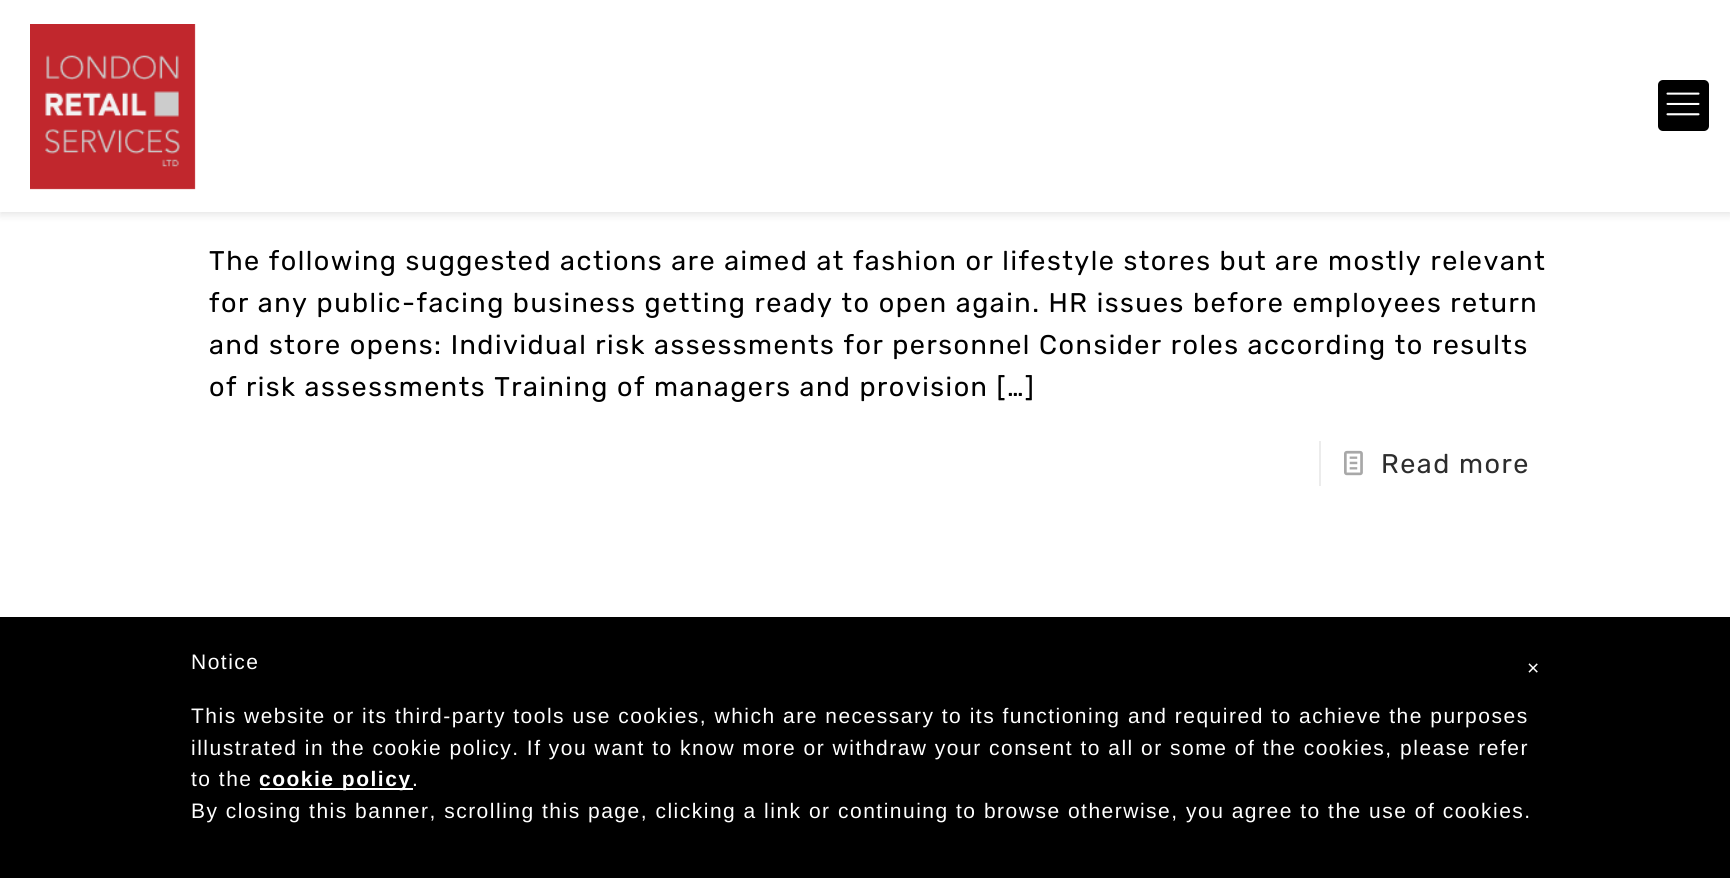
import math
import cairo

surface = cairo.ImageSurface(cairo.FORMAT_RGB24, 1730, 878)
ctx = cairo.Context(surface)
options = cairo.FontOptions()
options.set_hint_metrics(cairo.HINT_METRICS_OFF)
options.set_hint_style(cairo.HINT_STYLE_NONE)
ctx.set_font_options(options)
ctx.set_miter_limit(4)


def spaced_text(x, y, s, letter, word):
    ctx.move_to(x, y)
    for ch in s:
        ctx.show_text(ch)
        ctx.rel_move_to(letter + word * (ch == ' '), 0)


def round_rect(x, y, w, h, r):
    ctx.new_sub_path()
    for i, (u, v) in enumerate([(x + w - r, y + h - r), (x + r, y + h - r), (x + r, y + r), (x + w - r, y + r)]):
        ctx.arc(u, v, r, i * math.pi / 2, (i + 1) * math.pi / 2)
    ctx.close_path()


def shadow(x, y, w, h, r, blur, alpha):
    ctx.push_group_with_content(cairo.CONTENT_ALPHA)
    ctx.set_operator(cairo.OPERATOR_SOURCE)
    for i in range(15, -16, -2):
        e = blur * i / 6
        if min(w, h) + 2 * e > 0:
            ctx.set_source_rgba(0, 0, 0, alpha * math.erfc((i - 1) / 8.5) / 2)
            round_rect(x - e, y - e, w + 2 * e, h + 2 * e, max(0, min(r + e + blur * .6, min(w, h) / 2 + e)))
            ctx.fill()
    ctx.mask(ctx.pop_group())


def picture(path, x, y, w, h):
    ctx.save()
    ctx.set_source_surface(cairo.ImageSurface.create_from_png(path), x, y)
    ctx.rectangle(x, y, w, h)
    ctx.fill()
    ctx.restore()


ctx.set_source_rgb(1, 1, 1)
ctx.paint()
ctx.set_source_rgb(0, 0, 0)
shadow(0, 3, 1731, 212, 0, 4, 0.1)
ctx.set_source_rgb(1, 1, 1)
ctx.rectangle(0, 0, 1730, 212)
ctx.fill()
picture("img1.png", 30, 24, 166, 166)
ctx.set_source_rgb(0, 0, 0)
round_rect(1658, 80, 51, 51, 5)
ctx.fill()
picture("img2.png", 1666, 92, 34, 24)
ctx.select_font_face("Rubik")
ctx.set_font_size(27)
spaced_text(209, 270, "The following suggested actions are aimed at fashion or lifestyle stores but are mostly relevant", 1.5, 0)
spaced_text(209, 312, "for any public-facing business getting ready to open again. HR issues before employees return", 1.5, 0)
spaced_text(209, 354, "and store opens: Individual risk assessments for personnel Consider roles according to results", 1.5, 0)
spaced_text(209, 396, "of risk assessments Training of managers and provision […]", 1.5, 0)
ctx.set_source_rgb(0.922, 0.922, 0.922)
ctx.rectangle(1319, 441, 2, 45)
ctx.fill()
picture("img3.png", 1344, 450, 19, 26)
ctx.set_source_rgb(0.176, 0.176, 0.176)
spaced_text(1381, 473, "Read more", 1.5, 0)
ctx.set_source_rgb(0, 0, 0)
ctx.rectangle(0, 617, 1730, 261)
ctx.fill()
ctx.select_font_face("Liberation Sans")
ctx.set_font_size(21)
ctx.set_source_rgb(1, 1, 1)
spaced_text(191, 669, "Notice", 1.5, 0)
spaced_text(191, 723, "This website or its third-party tools use cookies, which are necessary to its functioning and required to achieve the purposes", 1.5, 0)
spaced_text(191, 755, "illustrated in the cookie policy. If you want to know more or withdraw your consent to all or some of the cookies, please refer", 1.5, 0)
spaced_text(191, 786, "to the", 1.5, 0)
ctx.rectangle(260, 788, 153, 2)
ctx.fill()
ctx.select_font_face("Liberation Sans", cairo.FONT_SLANT_NORMAL, cairo.FONT_WEIGHT_BOLD)
spaced_text(259, 786, "cookie policy", 1.5, 0)
ctx.select_font_face("Liberation Sans")
spaced_text(412, 786, ".", 1.5, 0)
spaced_text(191, 818, "By closing this banner, scrolling this page, clicking a link or continuing to browse otherwise, you agree to the use of cookies.", 1.5, 0)
spaced_text(1527, 675, "×", 1.5, 0)
surface.write_to_png("page.png")
